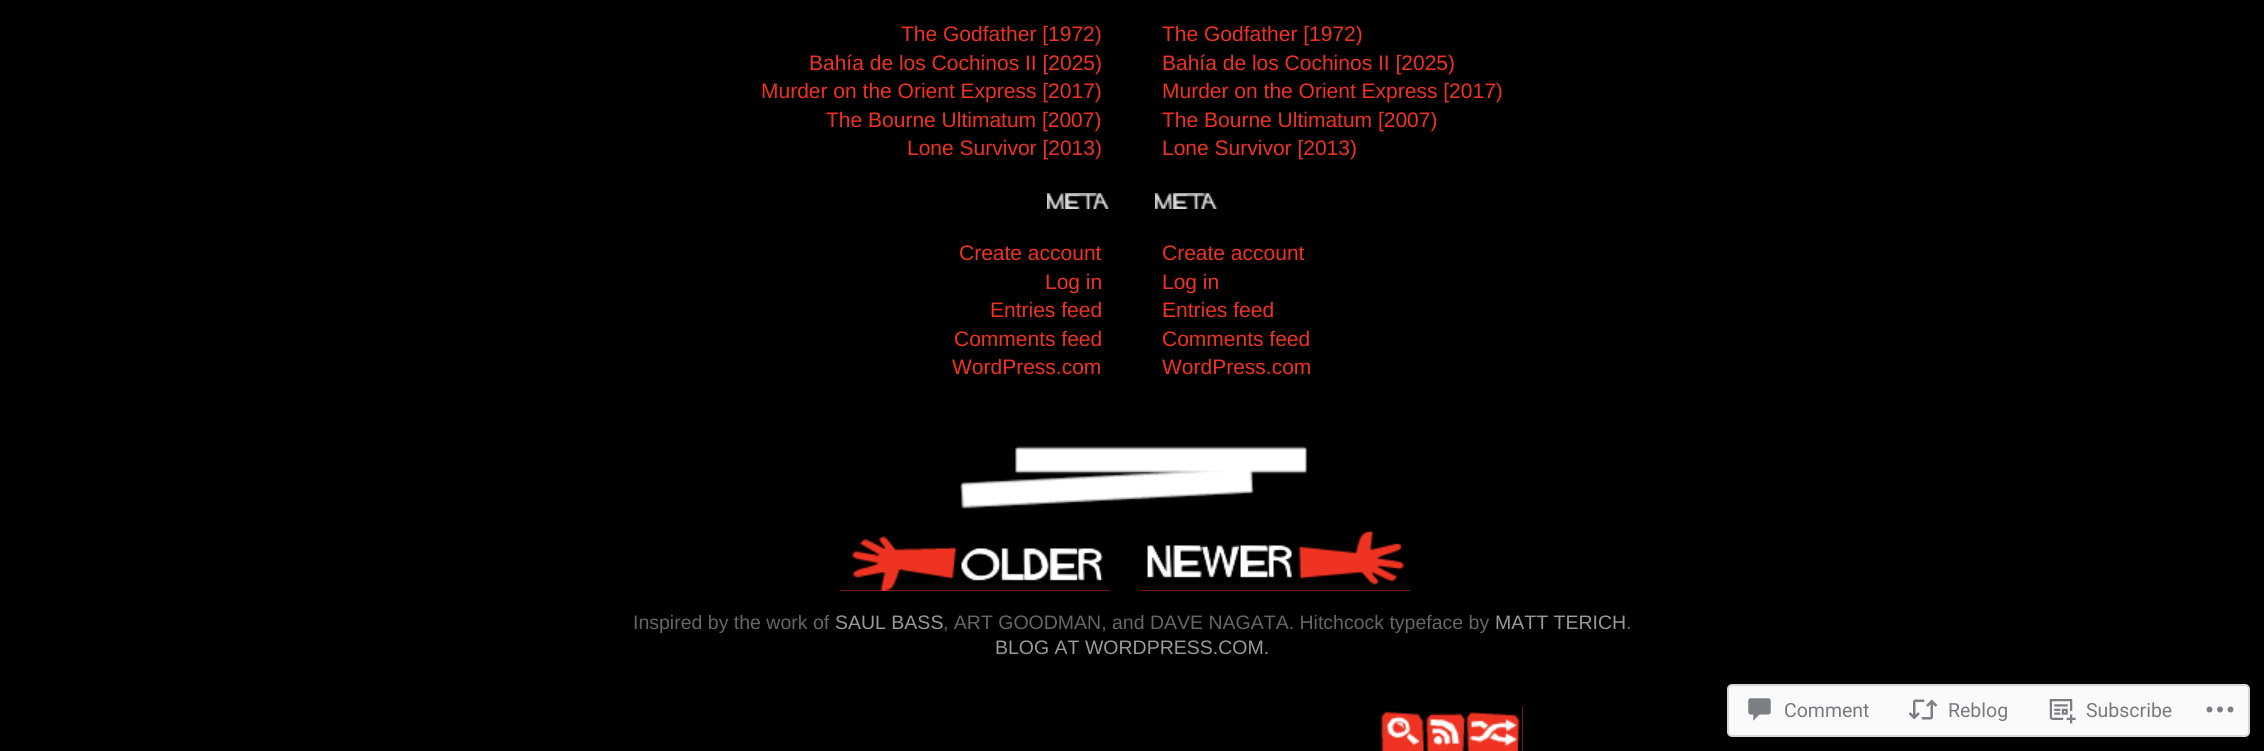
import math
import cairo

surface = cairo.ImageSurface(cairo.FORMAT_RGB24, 2264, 751)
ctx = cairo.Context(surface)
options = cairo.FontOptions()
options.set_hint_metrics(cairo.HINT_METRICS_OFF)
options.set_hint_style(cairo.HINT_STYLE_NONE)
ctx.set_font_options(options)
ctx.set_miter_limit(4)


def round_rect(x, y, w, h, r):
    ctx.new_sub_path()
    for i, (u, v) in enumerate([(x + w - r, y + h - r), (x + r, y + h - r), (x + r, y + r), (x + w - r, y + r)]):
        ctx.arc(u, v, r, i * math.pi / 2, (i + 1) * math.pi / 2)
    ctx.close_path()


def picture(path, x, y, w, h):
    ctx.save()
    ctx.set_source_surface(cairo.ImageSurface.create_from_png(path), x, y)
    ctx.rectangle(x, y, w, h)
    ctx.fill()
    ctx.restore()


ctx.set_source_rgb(0, 0, 0)
ctx.paint()
ctx.select_font_face("Liberation Sans")
ctx.set_font_size(21)
ctx.set_source_rgb(0.933, 0.2, 0.133)
ctx.move_to(901, 41)
ctx.show_text("The Godfather [1972)")
ctx.move_to(809, 70)
ctx.show_text("Bahía de los Cochinos II [2025)")
ctx.move_to(761, 98)
ctx.show_text("Murder on the Orient Express [2017)")
ctx.move_to(826, 127)
ctx.show_text("The Bourne Ultimatum [2007)")
ctx.move_to(907, 155)
ctx.show_text("Lone Survivor [2013)")
picture("img1.png", 1047, 193, 62, 16)
ctx.move_to(959, 260)
ctx.show_text("Create account")
ctx.move_to(1045, 289)
ctx.show_text("Log in")
ctx.move_to(990, 317)
ctx.show_text("Entries feed")
ctx.move_to(954, 346)
ctx.show_text("Comments feed")
ctx.move_to(952, 374)
ctx.show_text("WordPress.com")
ctx.move_to(1162, 41)
ctx.show_text("The Godfather [1972)")
ctx.move_to(1162, 70)
ctx.show_text("Bahía de los Cochinos II [2025)")
ctx.move_to(1162, 98)
ctx.show_text("Murder on the Orient Express [2017)")
ctx.move_to(1162, 127)
ctx.show_text("The Bourne Ultimatum [2007)")
ctx.move_to(1162, 155)
ctx.show_text("Lone Survivor [2013)")
picture("img1.png", 1155, 193, 62, 16)
ctx.move_to(1162, 260)
ctx.show_text("Create account")
ctx.move_to(1162, 289)
ctx.show_text("Log in")
ctx.move_to(1162, 317)
ctx.show_text("Entries feed")
ctx.move_to(1162, 346)
ctx.show_text("Comments feed")
ctx.move_to(1162, 374)
ctx.show_text("WordPress.com")
picture("img2.png", 959, 446, 348, 63)
ctx.rectangle(840, 536, 270, 55)
ctx.fill()
picture("img3.png", 840, 531, 270, 60)
picture("img4.png", 1147, 530, 257, 1)
ctx.rectangle(1140, 531, 270, 60)
ctx.fill()
picture("img5.png", 1140, 531, 270, 60)
ctx.set_font_size(19.5)
ctx.set_source_rgb(0.4, 0.4, 0.4)
ctx.move_to(633, 629)
ctx.show_text("Inspired by the work of")
ctx.set_source_rgb(0.6, 0.6, 0.6)
ctx.move_to(835, 629)
ctx.show_text("SAUL BASS")
ctx.set_source_rgb(0.4, 0.4, 0.4)
ctx.move_to(943, 629)
ctx.show_text(", ART GOODMAN, and DAVE NAGATA. Hitchcock typeface by")
ctx.set_source_rgb(0.6, 0.6, 0.6)
ctx.move_to(1495, 629)
ctx.show_text("MATT TERICH")
ctx.set_source_rgb(0.4, 0.4, 0.4)
ctx.move_to(1626, 629)
ctx.show_text(".")
ctx.set_source_rgb(0.6, 0.6, 0.6)
ctx.move_to(995, 654)
ctx.show_text("BLOG AT WORDPRESS.COM.")
ctx.set_source_rgb(0.933, 0.2, 0.133)
ctx.rectangle(1381, 707, 142, 44)
ctx.fill()
picture("img6.png", 1373, 707, 150, 44)
ctx.set_source_rgb(0.98, 0.98, 0.98)
round_rect(1728, 685, 521, 51, 4)
ctx.fill_preserve()
ctx.set_source_rgb(0.847, 0.847, 0.855)
ctx.stroke()
picture("img7.png", 1748, 698, 23, 23)
ctx.select_font_face("Roboto")
ctx.set_source_rgb(0.463, 0.478, 0.498)
ctx.move_to(1784, 717)
ctx.show_text("Comment")
picture("img8.png", 1908, 699, 30, 21)
ctx.move_to(1948, 717)
ctx.show_text("Reblog")
picture("img9.png", 2049, 699, 27, 25)
ctx.move_to(2086, 717)
ctx.show_text("Subscribe")
picture("img10.png", 2206, 706, 28, 7)
surface.write_to_png("page.png")
